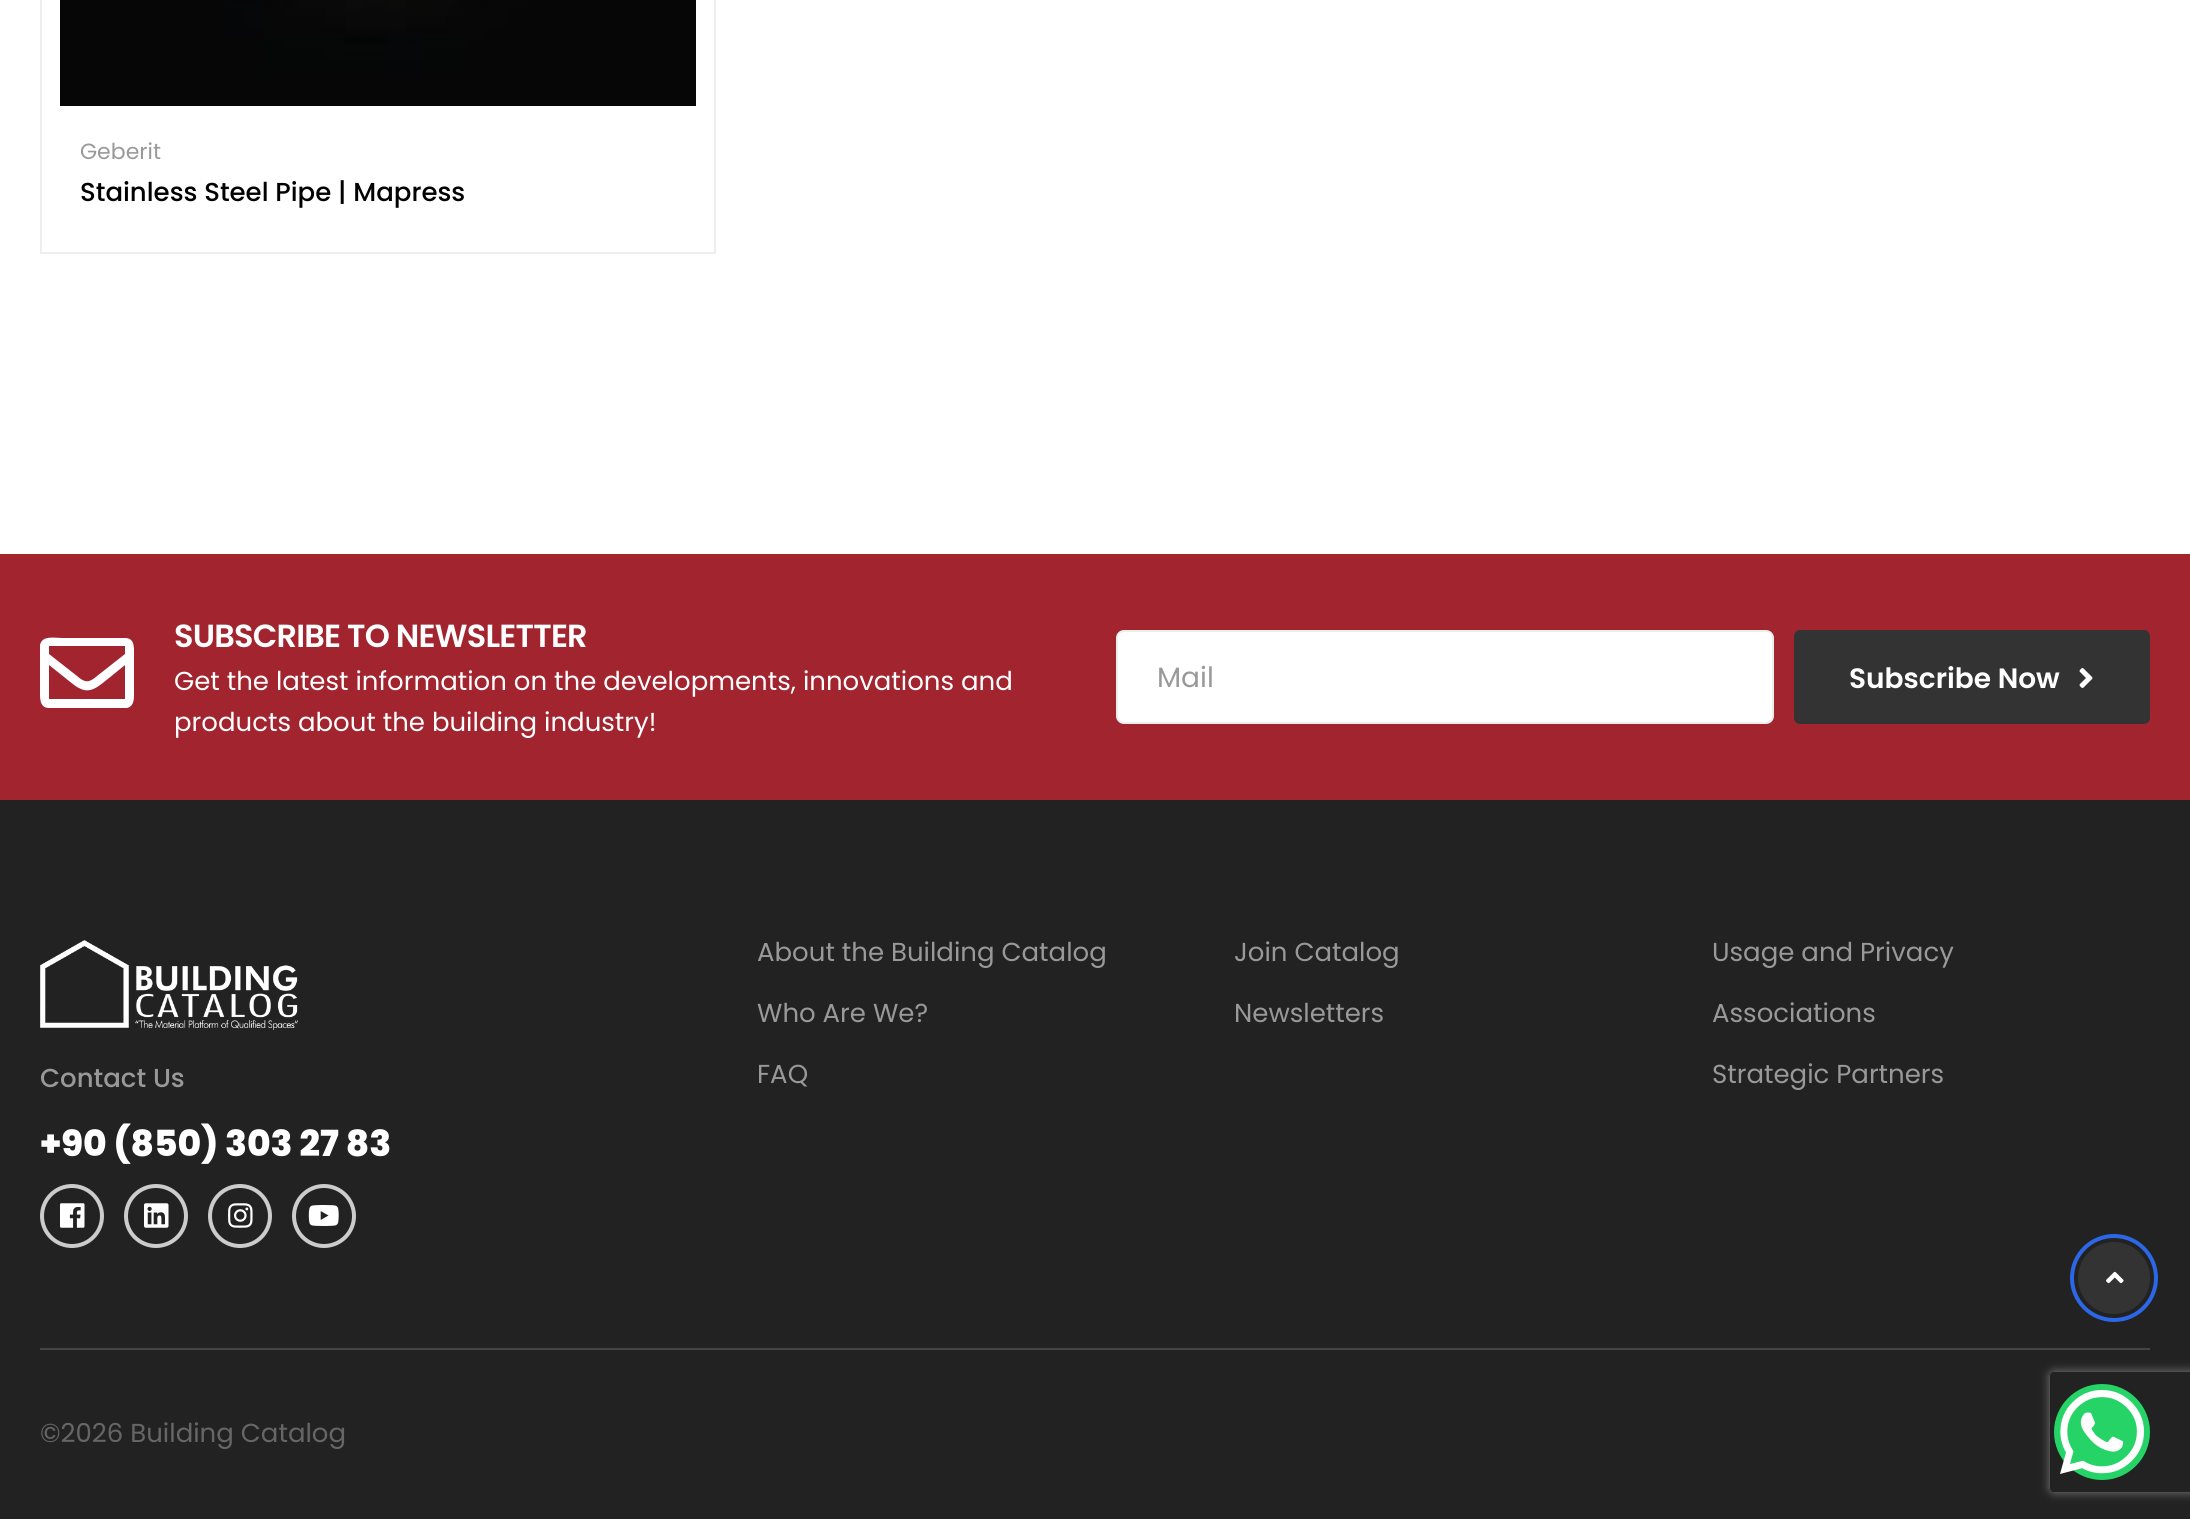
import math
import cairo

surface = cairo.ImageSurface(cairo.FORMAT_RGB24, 2190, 1519)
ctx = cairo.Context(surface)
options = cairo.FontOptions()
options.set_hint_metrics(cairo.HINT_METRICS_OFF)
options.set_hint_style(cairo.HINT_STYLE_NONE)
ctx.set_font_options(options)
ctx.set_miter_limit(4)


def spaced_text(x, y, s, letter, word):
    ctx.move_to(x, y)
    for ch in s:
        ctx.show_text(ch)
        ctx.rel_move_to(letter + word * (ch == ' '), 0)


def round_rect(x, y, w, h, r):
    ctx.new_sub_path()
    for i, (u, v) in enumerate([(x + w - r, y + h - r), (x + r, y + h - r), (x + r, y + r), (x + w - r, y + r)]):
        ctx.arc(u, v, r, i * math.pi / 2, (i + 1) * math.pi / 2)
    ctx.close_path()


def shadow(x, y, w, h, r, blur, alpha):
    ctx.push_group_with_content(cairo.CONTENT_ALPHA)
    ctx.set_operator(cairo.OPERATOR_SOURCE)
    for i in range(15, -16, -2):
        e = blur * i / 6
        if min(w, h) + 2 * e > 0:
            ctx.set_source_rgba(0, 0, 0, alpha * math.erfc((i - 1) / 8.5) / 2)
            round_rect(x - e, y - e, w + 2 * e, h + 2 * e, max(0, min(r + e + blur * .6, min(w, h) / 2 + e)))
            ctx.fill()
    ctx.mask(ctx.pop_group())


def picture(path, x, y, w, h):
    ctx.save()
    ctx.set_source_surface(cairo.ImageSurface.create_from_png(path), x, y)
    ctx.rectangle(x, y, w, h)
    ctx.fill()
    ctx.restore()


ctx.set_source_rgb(1, 1, 1)
ctx.paint()
ctx.rectangle(41, -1, 674, 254)
ctx.set_source_rgb(0.933, 0.933, 0.933)
ctx.stroke()
picture("img1.png", 60, 0, 636, 106)
ctx.select_font_face("Poppins")
ctx.set_font_size(22)
ctx.set_source_rgb(0.6, 0.6, 0.6)
ctx.move_to(80, 159)
ctx.show_text("Geberit")
ctx.select_font_face("Poppins Medium")
ctx.set_font_size(26)
ctx.set_source_rgb(0.008, 0.004, 0.004)
ctx.move_to(80, 201)
ctx.show_text("Stainless Steel Pipe | Mapress")
ctx.set_source_rgb(0.133, 0.133, 0.133)
ctx.rectangle(0, 800, 2190, 719)
ctx.fill()
ctx.set_source_rgb(0.635, 0.141, 0.18)
ctx.rectangle(0, 554, 2190, 246)
ctx.fill()
ctx.set_source_rgb(1, 1, 1)
ctx.new_path()
ctx.move_to(125, 638)
ctx.curve_to(135, 638, 134, 648, 134, 655)
ctx.line_to(134, 690)
ctx.curve_to(134, 697, 135, 706, 127, 708)
ctx.line_to(49, 708)
ctx.curve_to(39, 708, 40, 697, 40, 690)
ctx.line_to(40, 645)
ctx.curve_to(42, 635, 55, 638, 62, 638)
ctx.close_path()
ctx.move_to(125, 646)
ctx.line_to(49, 646)
ctx.line_to(49, 654)
ctx.line_to(77, 676)
ctx.curve_to(85, 683, 89, 683, 97, 676)
ctx.line_to(125, 654)
ctx.close_path()
ctx.move_to(49, 699)
ctx.line_to(125, 699)
ctx.line_to(125, 665)
ctx.line_to(109, 678)
ctx.curve_to(101, 684, 92, 694, 81, 689)
ctx.curve_to(76, 687, 73, 684, 69, 681)
ctx.line_to(49, 665)
ctx.close_path()
ctx.fill()
ctx.select_font_face("Poppins SemiBold")
ctx.set_font_size(32)
spaced_text(174, 647, "SUBSCRIBE TO NEWSLETTER", -0.8, 0)
ctx.select_font_face("Poppins")
ctx.set_font_size(26)
ctx.move_to(174, 690)
ctx.show_text("Get the latest information on the developments, innovations and")
ctx.move_to(174, 731)
ctx.show_text("products about the building industry!")
round_rect(1117, 631, 656, 92, 7)
ctx.fill_preserve()
ctx.set_source_rgb(0.933, 0.933, 0.933)
ctx.stroke()
ctx.set_font_size(28)
ctx.set_source_rgb(0.6, 0.6, 0.6)
ctx.move_to(1157, 687)
ctx.show_text("Mail")
ctx.set_source_rgb(0.2, 0.2, 0.2)
round_rect(1796, 632, 352, 90, 4)
ctx.fill_preserve()
ctx.set_line_width(4)
ctx.stroke()
ctx.select_font_face("Poppins SemiBold")
ctx.set_source_rgb(1, 1, 1)
ctx.move_to(1849, 688)
ctx.show_text("Subscribe Now")
picture("img2.png", 2079, 668, 14, 20)
ctx.set_source_rgb(0.271, 0.271, 0.271)
ctx.rectangle(40, 1348, 2110, 2)
ctx.fill()
ctx.select_font_face("Poppins")
ctx.set_font_size(26)
ctx.set_source_rgb(0.6, 0.6, 0.6)
ctx.move_to(757, 961)
ctx.show_text("About the Building Catalog")
ctx.move_to(757, 1022)
ctx.show_text("Who Are We?")
ctx.move_to(757, 1083)
ctx.show_text("FAQ")
ctx.move_to(1234, 961)
ctx.show_text("Join Catalog")
ctx.move_to(1234, 1022)
ctx.show_text("Newsletters")
ctx.move_to(1712, 961)
ctx.show_text("Usage and Privacy")
ctx.move_to(1712, 1022)
ctx.show_text("Associations")
ctx.move_to(1712, 1083)
ctx.show_text("Strategic Partners")
picture("img3.png", 40, 940, 258, 90)
ctx.select_font_face("Poppins Medium")
ctx.move_to(40, 1087)
ctx.show_text("Contact Us")
ctx.select_font_face("Poppins ExtraBold")
ctx.set_font_size(36)
ctx.set_source_rgb(1, 1, 1)
ctx.move_to(40, 1156)
ctx.show_text("+90 (850) 303 27 83")
ctx.new_path()
ctx.arc(72, 1216, 30, 0, 2 * math.pi)
ctx.set_source_rgb(0.8, 0.8, 0.8)
ctx.stroke()
picture("img4.png", 60, 1203, 25, 25)
ctx.arc(156, 1216, 30, 0, 2 * math.pi)
ctx.stroke()
picture("img5.png", 144, 1203, 25, 25)
ctx.arc(240, 1216, 30, 0, 2 * math.pi)
ctx.stroke()
picture("img6.png", 228, 1203, 25, 25)
ctx.arc(324, 1216, 30, 0, 2 * math.pi)
ctx.stroke()
picture("img7.png", 308, 1205, 31, 21)
ctx.select_font_face("Poppins")
ctx.set_font_size(26)
ctx.set_source_rgb(0.4, 0.4, 0.4)
ctx.move_to(40, 1442)
ctx.show_text("©2026 Building Catalog")
ctx.save()
round_rect(2070, 1234, 88, 88, 44)
ctx.clip()
ctx.new_path()
ctx.move_to(2114, 1235.5)
ctx.curve_to(2137.5, 1235.5, 2156.5, 1254.5, 2156.5, 1278)
ctx.curve_to(2156.5, 1301.5, 2137.5, 1320.5, 2114, 1320.5)
ctx.curve_to(2090.5, 1320.5, 2071.5, 1301.5, 2071.5, 1278)
ctx.curve_to(2071.5, 1254.5, 2090.5, 1235.5, 2114, 1235.5)
ctx.set_source_rgb(0.173, 0.404, 0.906)
ctx.set_line_width(5)
ctx.set_line_cap(cairo.LINE_CAP_ROUND)
ctx.stroke()
ctx.restore()
ctx.set_source_rgb(0.2, 0.2, 0.2)
ctx.arc(2114, 1278, 34, 0, 2 * math.pi)
ctx.fill_preserve()
ctx.stroke()
picture("img8.png", 2106, 1271, 18, 13)
ctx.save()
ctx.set_fill_rule(cairo.FILL_RULE_EVEN_ODD)
ctx.new_path()
ctx.move_to(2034, 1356)
ctx.line_to(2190, 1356)
ctx.line_to(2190, 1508)
ctx.line_to(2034, 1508)
ctx.close_path()
ctx.move_to(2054, 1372)
ctx.line_to(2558, 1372)
ctx.curve_to(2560, 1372, 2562, 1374, 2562, 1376)
ctx.line_to(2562, 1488)
ctx.curve_to(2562, 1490, 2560, 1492, 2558, 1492)
ctx.line_to(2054, 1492)
ctx.curve_to(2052, 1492, 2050, 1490, 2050, 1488)
ctx.line_to(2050, 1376)
ctx.curve_to(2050, 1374, 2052, 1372, 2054, 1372)
ctx.close_path()
ctx.clip()
ctx.set_source_rgb(0.502, 0.502, 0.502)
shadow(2050, 1372, 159, 120, 4, 5, 1)
ctx.restore()
ctx.set_source_rgb(0.145, 0.827, 0.4)
ctx.arc(2102, 1432, 48, 0, 2 * math.pi)
ctx.fill()
picture("img9.png", 2060, 1390, 84, 84)
surface.write_to_png("page.png")
